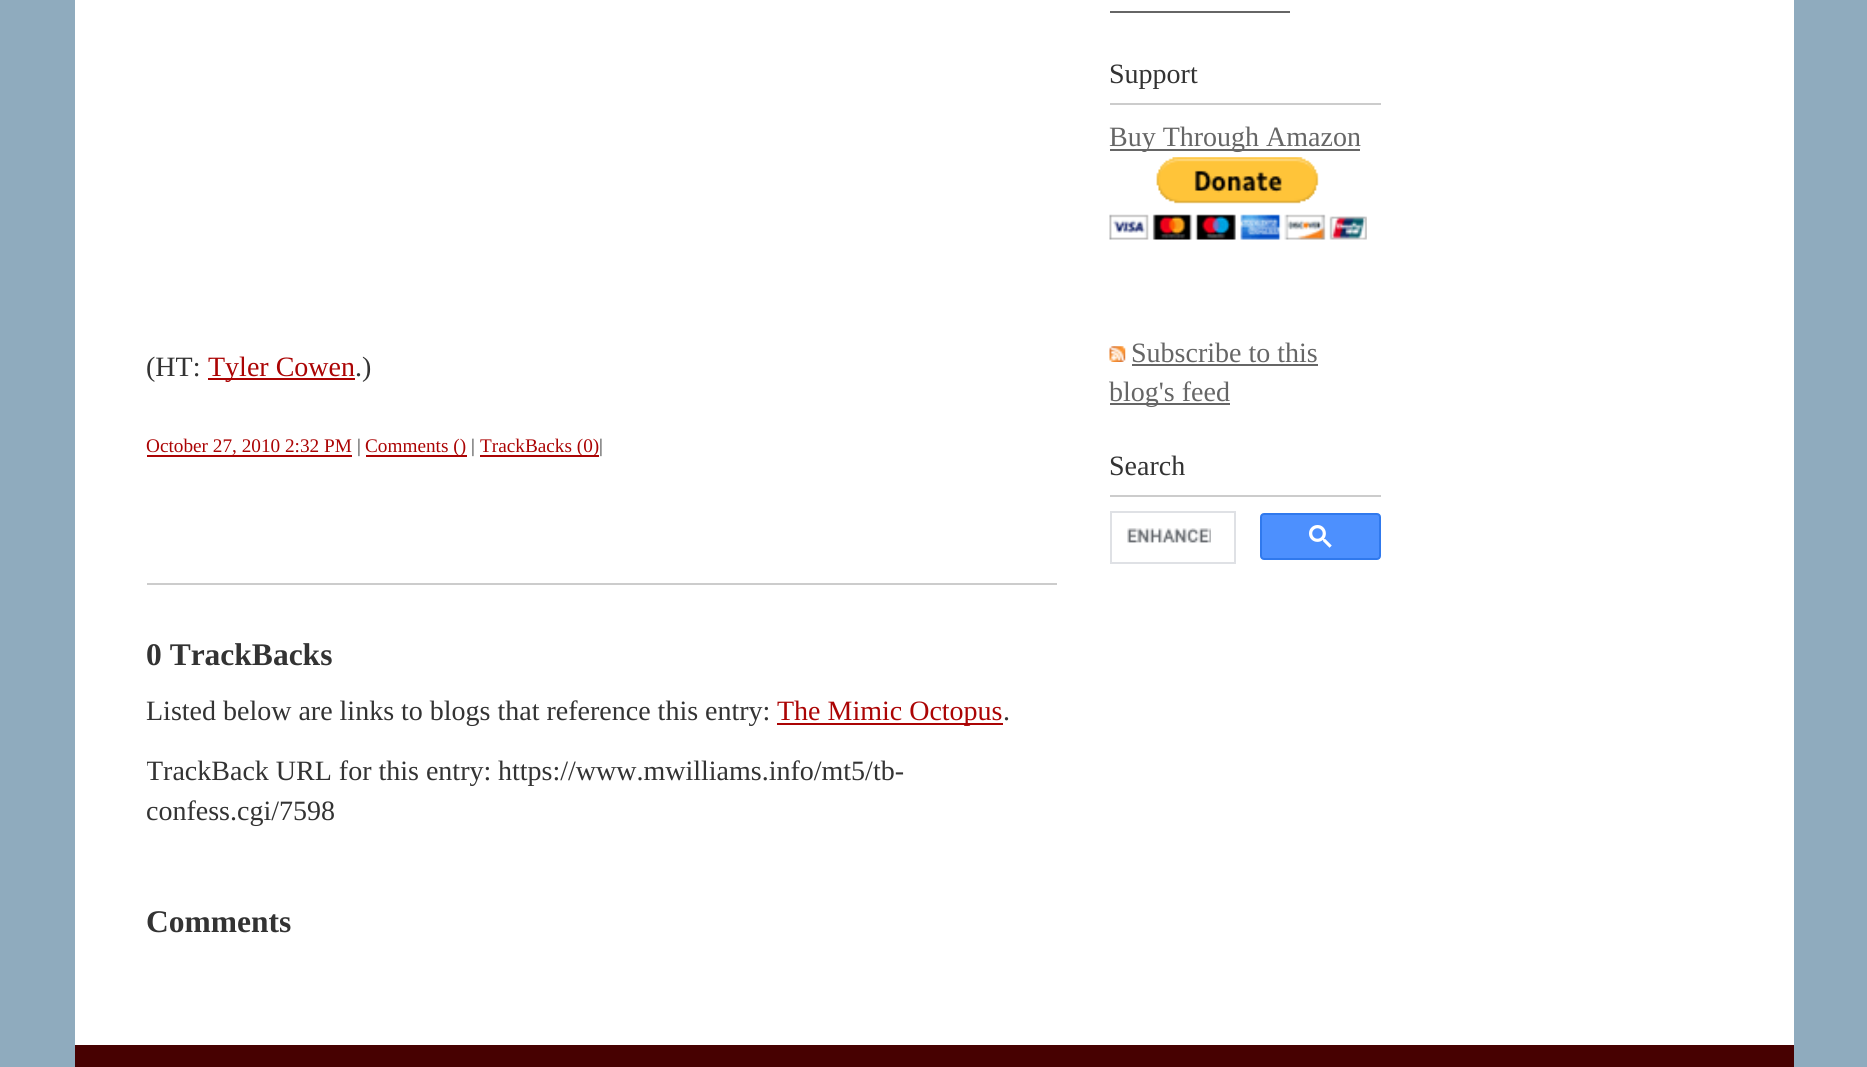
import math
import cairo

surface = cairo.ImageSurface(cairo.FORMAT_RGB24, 1867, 1067)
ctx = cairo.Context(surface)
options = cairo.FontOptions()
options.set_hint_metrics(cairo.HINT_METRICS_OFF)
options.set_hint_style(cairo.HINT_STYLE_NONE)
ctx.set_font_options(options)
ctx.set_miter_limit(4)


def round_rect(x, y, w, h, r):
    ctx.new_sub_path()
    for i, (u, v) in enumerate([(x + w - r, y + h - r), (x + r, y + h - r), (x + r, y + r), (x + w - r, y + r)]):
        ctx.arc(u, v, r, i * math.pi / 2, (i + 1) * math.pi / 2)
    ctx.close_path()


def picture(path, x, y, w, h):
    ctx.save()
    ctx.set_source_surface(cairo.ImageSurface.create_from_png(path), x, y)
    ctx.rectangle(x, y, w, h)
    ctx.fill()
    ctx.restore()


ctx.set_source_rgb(0.561, 0.671, 0.745)
ctx.paint()
ctx.set_source_rgb(1, 1, 1)
ctx.rectangle(75, 0, 1719, 1045)
ctx.fill()
ctx.set_source_rgb(0.4, 0.4, 0.4)
ctx.rectangle(1110, 11, 180, 2)
ctx.fill()
ctx.set_source_rgb(0.8, 0.8, 0.8)
ctx.rectangle(1110, 103, 271, 2)
ctx.fill()
ctx.select_font_face("Liberation Serif")
ctx.set_font_size(28)
ctx.set_source_rgb(0.2, 0.2, 0.2)
ctx.move_to(1109, 83)
ctx.show_text("Support")
ctx.set_source_rgb(0.4, 0.4, 0.4)
ctx.rectangle(1110, 149, 250, 2)
ctx.fill()
ctx.move_to(1109, 146)
ctx.show_text("Buy Through Amazon")
picture("img1.png", 1109, 157, 258, 83)
picture("img2.png", 1109, 346, 17, 16)
ctx.move_to(1131, 362)
ctx.show_text("Subscribe to this")
ctx.rectangle(1132, 364, 186, 2)
ctx.fill()
ctx.rectangle(1110, 403, 120, 2)
ctx.fill()
ctx.move_to(1109, 401)
ctx.show_text("blog's feed")
ctx.set_source_rgb(0.8, 0.8, 0.8)
ctx.rectangle(1110, 495, 271, 2)
ctx.fill()
ctx.set_source_rgb(0.2, 0.2, 0.2)
ctx.move_to(1109, 475)
ctx.show_text("Search")
ctx.rectangle(1111, 512, 124, 51)
ctx.set_source_rgb(0.875, 0.882, 0.898)
ctx.stroke()
picture("img3.png", 1127, 528, 84, 15)
ctx.set_source_rgb(0.302, 0.565, 0.996)
round_rect(1261, 514, 119, 45, 3)
ctx.fill_preserve()
ctx.set_source_rgb(0.188, 0.475, 0.929)
ctx.stroke()
picture("img4.png", 1309, 525, 23, 23)
ctx.set_source_rgb(0.2, 0.2, 0.2)
ctx.move_to(146, 376)
ctx.show_text("(HT:")
ctx.set_source_rgb(0.671, 0.016, 0.016)
ctx.rectangle(208, 378, 147, 2)
ctx.fill()
ctx.move_to(208, 376)
ctx.show_text("Tyler Cowen")
ctx.set_source_rgb(0.2, 0.2, 0.2)
ctx.move_to(355, 376)
ctx.show_text(".)")
ctx.set_source_rgb(0.8, 0.8, 0.8)
ctx.rectangle(147, 583, 910, 2)
ctx.fill()
ctx.set_font_size(19.25)
ctx.set_source_rgb(0.671, 0.016, 0.016)
ctx.move_to(146, 452)
ctx.show_text("October 27, 2010 2:32 PM")
ctx.rectangle(147, 455, 205, 2)
ctx.fill()
ctx.set_source_rgb(0.2, 0.2, 0.2)
ctx.move_to(357, 452)
ctx.show_text("|")
ctx.set_source_rgb(0.671, 0.016, 0.016)
ctx.rectangle(366, 455, 101, 2)
ctx.fill()
ctx.move_to(365, 452)
ctx.show_text("Comments ()")
ctx.set_source_rgb(0.2, 0.2, 0.2)
ctx.move_to(471, 452)
ctx.show_text("|")
ctx.set_source_rgb(0.671, 0.016, 0.016)
ctx.rectangle(480, 455, 119, 2)
ctx.fill()
ctx.move_to(480, 452)
ctx.show_text("TrackBacks (0)")
ctx.set_source_rgb(0.2, 0.2, 0.2)
ctx.move_to(599, 452)
ctx.show_text("|")
ctx.select_font_face("Liberation Serif", cairo.FONT_SLANT_NORMAL, cairo.FONT_WEIGHT_BOLD)
ctx.set_font_size(31.5)
ctx.move_to(146, 665)
ctx.show_text("0 TrackBacks")
ctx.select_font_face("Liberation Serif")
ctx.set_font_size(28)
ctx.move_to(146, 720)
ctx.show_text("Listed below are links to blogs that reference this entry:")
ctx.set_source_rgb(0.671, 0.016, 0.016)
ctx.rectangle(777, 723, 226, 2)
ctx.fill()
ctx.move_to(777, 720)
ctx.show_text("The Mimic Octopus")
ctx.set_source_rgb(0.2, 0.2, 0.2)
ctx.move_to(1003, 720)
ctx.show_text(".")
ctx.save()
ctx.rectangle(147, 627, 910, 225)
ctx.clip()
ctx.move_to(146, 780)
ctx.show_text("TrackBack URL for this entry:")
ctx.restore()
ctx.move_to(498, 780)
ctx.show_text("https://www.mwilliams.info/mt5/tb-")
ctx.move_to(146, 820)
ctx.show_text("confess.cgi/7598")
ctx.select_font_face("Liberation Serif", cairo.FONT_SLANT_NORMAL, cairo.FONT_WEIGHT_BOLD)
ctx.set_font_size(31.5)
ctx.move_to(146, 932)
ctx.show_text("Comments")
ctx.set_source_rgb(0.278, 0.004, 0.004)
ctx.rectangle(75, 1045, 1719, 22)
ctx.fill()
surface.write_to_png("page.png")
